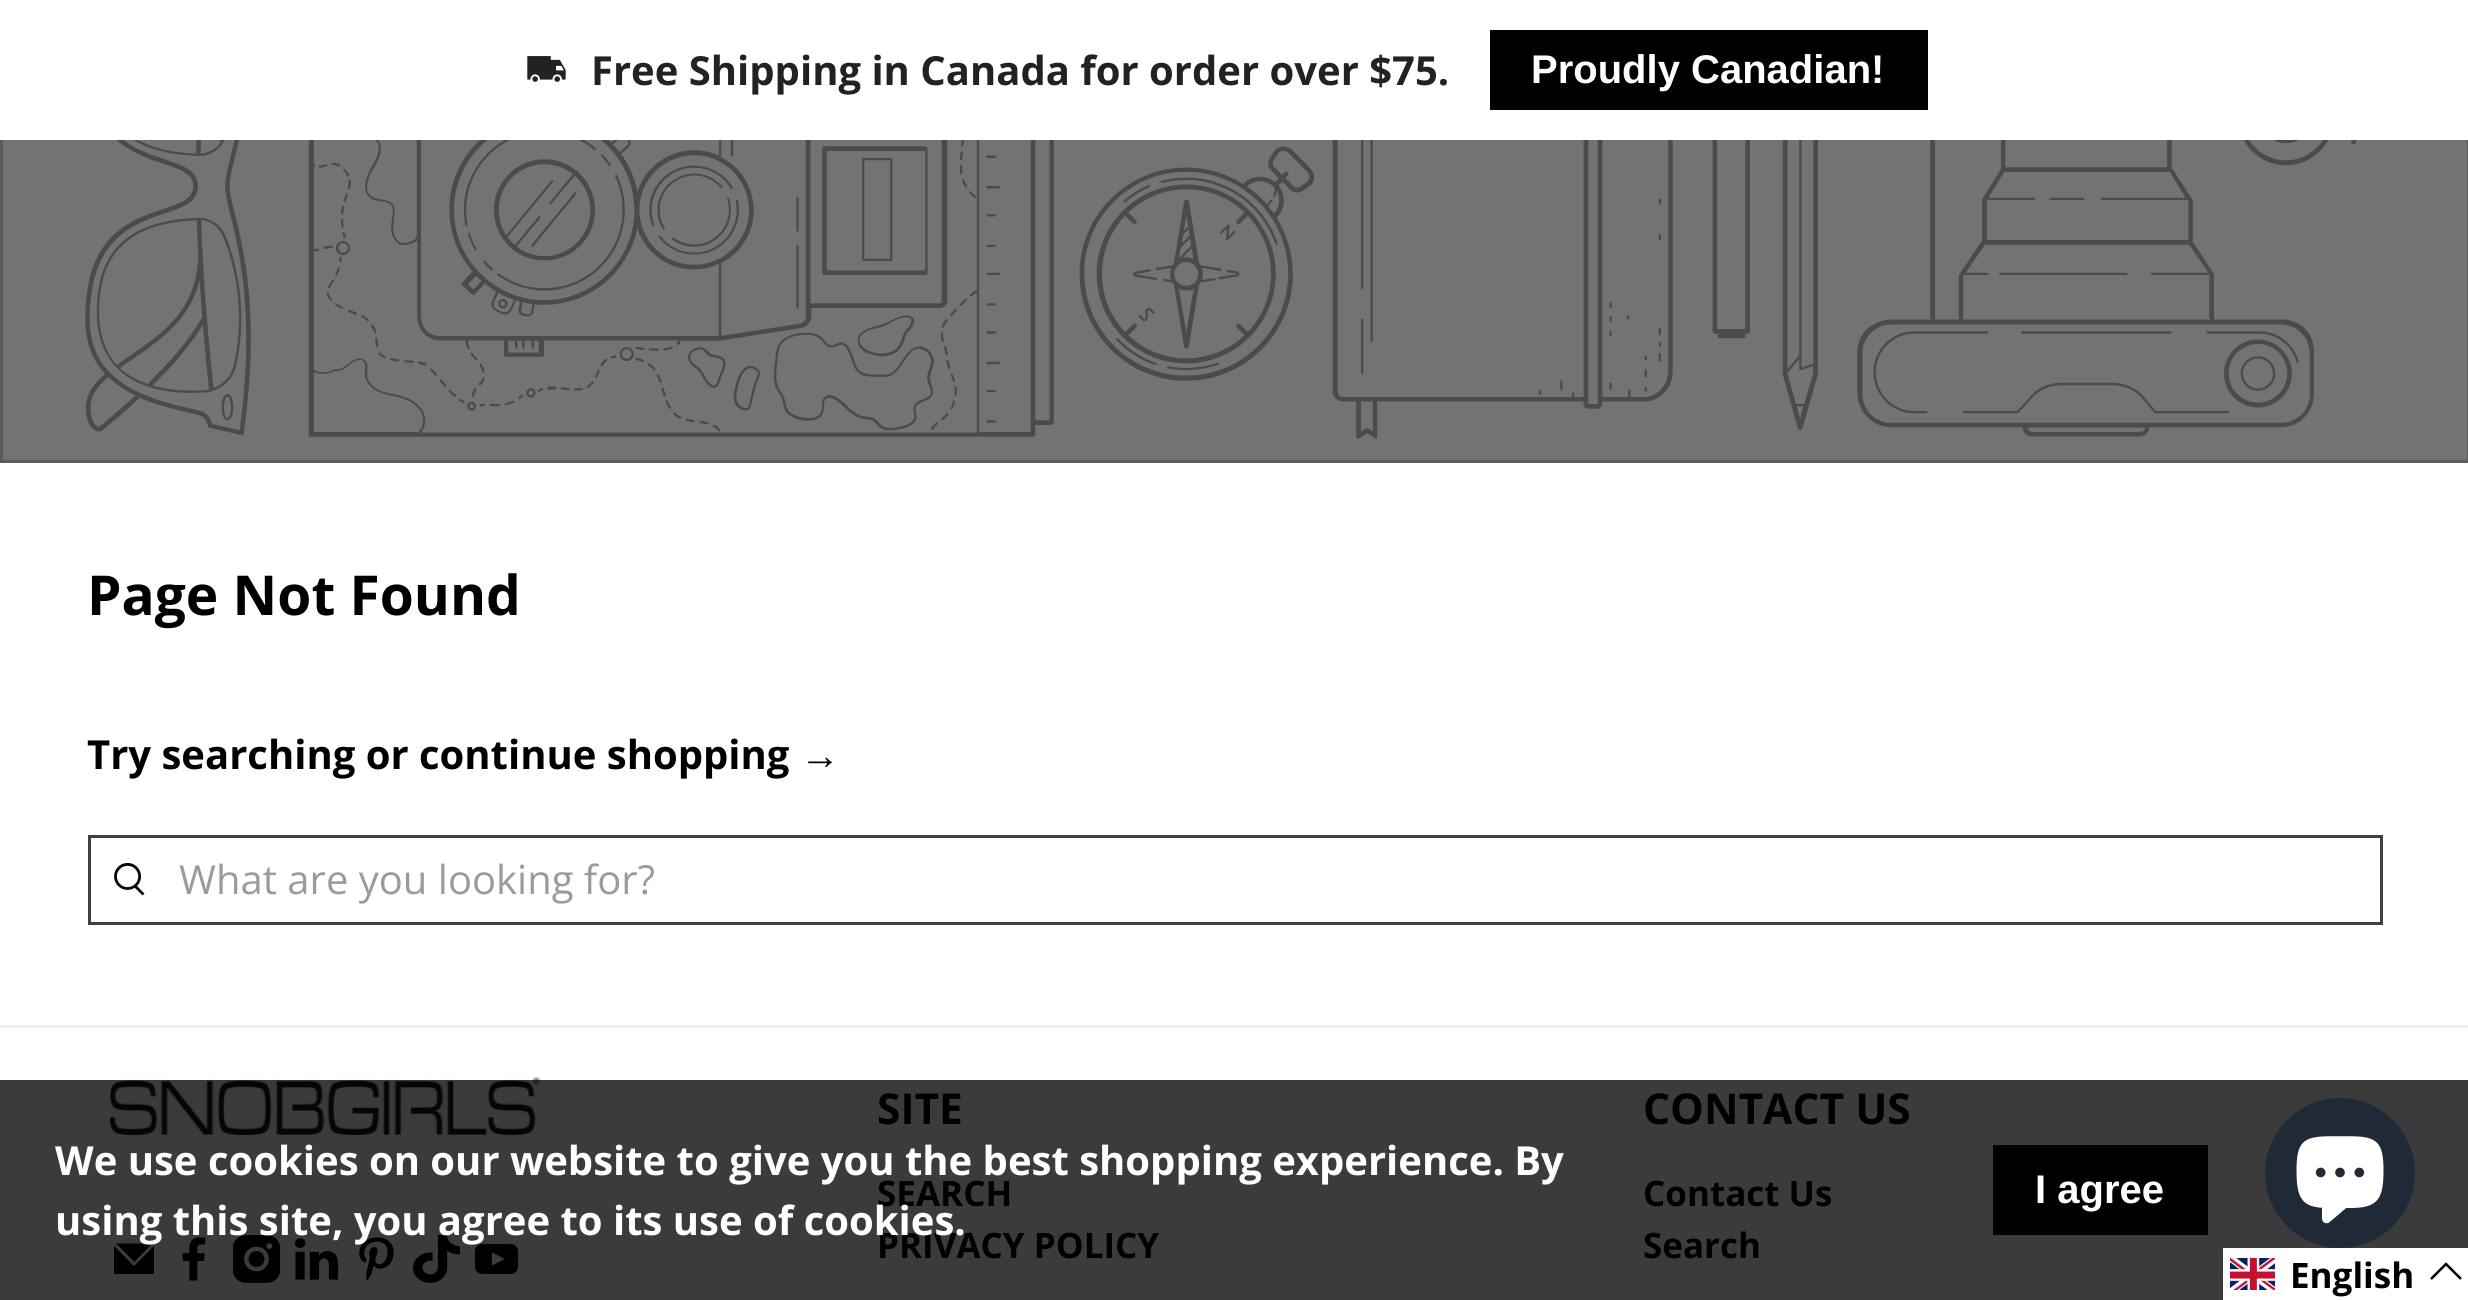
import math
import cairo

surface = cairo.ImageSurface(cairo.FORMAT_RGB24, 2468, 1300)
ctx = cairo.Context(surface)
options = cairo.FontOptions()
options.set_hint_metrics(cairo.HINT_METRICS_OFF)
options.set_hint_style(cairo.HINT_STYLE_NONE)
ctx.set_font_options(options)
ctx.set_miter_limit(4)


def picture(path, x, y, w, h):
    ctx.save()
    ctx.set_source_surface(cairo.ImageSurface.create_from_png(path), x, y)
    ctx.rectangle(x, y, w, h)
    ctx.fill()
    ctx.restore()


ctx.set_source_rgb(1, 1, 1)
ctx.paint()
ctx.set_source_rgb(0.231, 0.231, 0.231)
ctx.rectangle(0, 1080, 2468, 220)
ctx.fill()
ctx.set_source_rgb(0.451, 0.451, 0.451)
ctx.rectangle(3, 140, 2464, 320)
ctx.fill()
ctx.rectangle(1.5, -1.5, 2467, 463)
ctx.set_source_rgb(0.361, 0.361, 0.361)
ctx.set_line_width(3)
ctx.stroke()
ctx.set_source_rgb(1, 1, 1)
ctx.rectangle(0, 0, 2468, 140)
ctx.fill()
picture("img1.png", 527, 56, 39, 26)
ctx.select_font_face("Open Sans", cairo.FONT_SLANT_NORMAL, cairo.FONT_WEIGHT_BOLD)
ctx.set_font_size(40)
ctx.set_source_rgb(0.133, 0.133, 0.133)
ctx.move_to(591, 85)
ctx.show_text("Free Shipping in Canada for order over $75.")
ctx.set_source_rgb(0, 0, 0)
ctx.rectangle(1490, 30, 438, 80)
ctx.fill()
ctx.select_font_face("Arimo", cairo.FONT_SLANT_NORMAL, cairo.FONT_WEIGHT_BOLD)
ctx.set_source_rgb(1, 1, 1)
ctx.move_to(1531, 83)
ctx.show_text("Proudly Canadian!")
picture("img2.png", 85, 140, 2272, 299)
ctx.select_font_face("Open Sans", cairo.FONT_SLANT_NORMAL, cairo.FONT_WEIGHT_BOLD)
ctx.set_font_size(55)
ctx.set_source_rgb(0, 0, 0)
ctx.move_to(87, 615)
ctx.show_text("Page Not Found")
ctx.set_font_size(40)
ctx.move_to(87, 769)
ctx.show_text("Try searching or continue shopping")
ctx.select_font_face("Liberation Sans", cairo.FONT_SLANT_NORMAL, cairo.FONT_WEIGHT_BOLD)
ctx.move_to(800, 769)
ctx.show_text("→")
ctx.rectangle(89.5, 836.5, 2292, 87)
ctx.set_source_rgb(0.251, 0.251, 0.251)
ctx.stroke()
picture("img3.png", 114, 863, 31, 33)
ctx.select_font_face("Open Sans")
ctx.set_source_rgb(0.608, 0.608, 0.608)
ctx.move_to(179, 894)
ctx.show_text("What are you looking for?")
ctx.set_source_rgb(0.933, 0.933, 0.933)
ctx.rectangle(0, 1025, 2468, 3)
ctx.fill()
picture("img4.png", 110, 1077, 430, 58)
ctx.set_source_rgb(0, 0, 0)
ctx.new_path()
ctx.move_to(135, 1265)
ctx.curve_to(133, 1267, 130, 1262, 130, 1262)
ctx.line_to(114, 1246)
ctx.line_to(114, 1274)
ctx.line_to(154, 1274)
ctx.line_to(154, 1246)
ctx.close_path()
ctx.fill()
ctx.new_path()
ctx.move_to(152, 1243.5)
ctx.line_to(116, 1243.5)
ctx.line_to(134.5, 1262)
ctx.close_path()
ctx.fill()
picture("img5.png", 182, 1237, 24, 44)
picture("img6.png", 233, 1235, 47, 48)
picture("img7.png", 294, 1238, 45, 42)
picture("img8.png", 359, 1237, 35, 44)
picture("img9.png", 413, 1235, 47, 48)
picture("img10.png", 474, 1244, 45, 30)
ctx.select_font_face("Open Sans", cairo.FONT_SLANT_NORMAL, cairo.FONT_WEIGHT_BOLD)
ctx.set_font_size(42.5)
ctx.move_to(877, 1124)
ctx.show_text("SITE")
ctx.set_font_size(35)
ctx.move_to(877, 1206)
ctx.show_text("SEARCH")
ctx.move_to(877, 1258)
ctx.show_text("PRIVACY POLICY")
ctx.set_font_size(42.5)
ctx.move_to(1643, 1124)
ctx.show_text("CONTACT US")
ctx.set_font_size(35)
ctx.move_to(1643, 1206)
ctx.show_text("Contact Us")
ctx.move_to(1643, 1258)
ctx.show_text("Search")
ctx.set_source_rgb(0.125, 0.165, 0.212)
ctx.new_path()
ctx.arc(2340, 1173, 75, 0, 2 * math.pi)
ctx.fill()
picture("img11.png", 2296, 1136, 88, 88)
ctx.set_font_size(40)
ctx.set_source_rgb(1, 1, 1)
ctx.move_to(55, 1175)
ctx.show_text("We use cookies on our website to give you the best shopping experience. By")
ctx.move_to(55, 1235)
ctx.show_text("using this site, you agree to its use of cookies.")
ctx.set_source_rgb(0, 0, 0)
ctx.rectangle(1993, 1145, 215, 90)
ctx.fill()
ctx.select_font_face("Arimo", cairo.FONT_SLANT_NORMAL, cairo.FONT_WEIGHT_BOLD)
ctx.set_source_rgb(1, 1, 1)
ctx.move_to(2035, 1203)
ctx.show_text("I agree")
ctx.rectangle(2223, 1248, 245, 52)
ctx.fill()
picture("img12.png", 2230, 1258, 45, 32)
ctx.select_font_face("Open Sans", cairo.FONT_SLANT_NORMAL, cairo.FONT_WEIGHT_BOLD)
ctx.set_font_size(35)
ctx.set_source_rgb(0, 0, 0)
ctx.move_to(2290, 1288)
ctx.show_text("English")
ctx.new_path()
ctx.move_to(2461, 1279)
ctx.line_to(2446, 1264)
ctx.line_to(2431, 1279)
ctx.set_line_width(2.5)
ctx.stroke()
surface.write_to_png("page.png")
